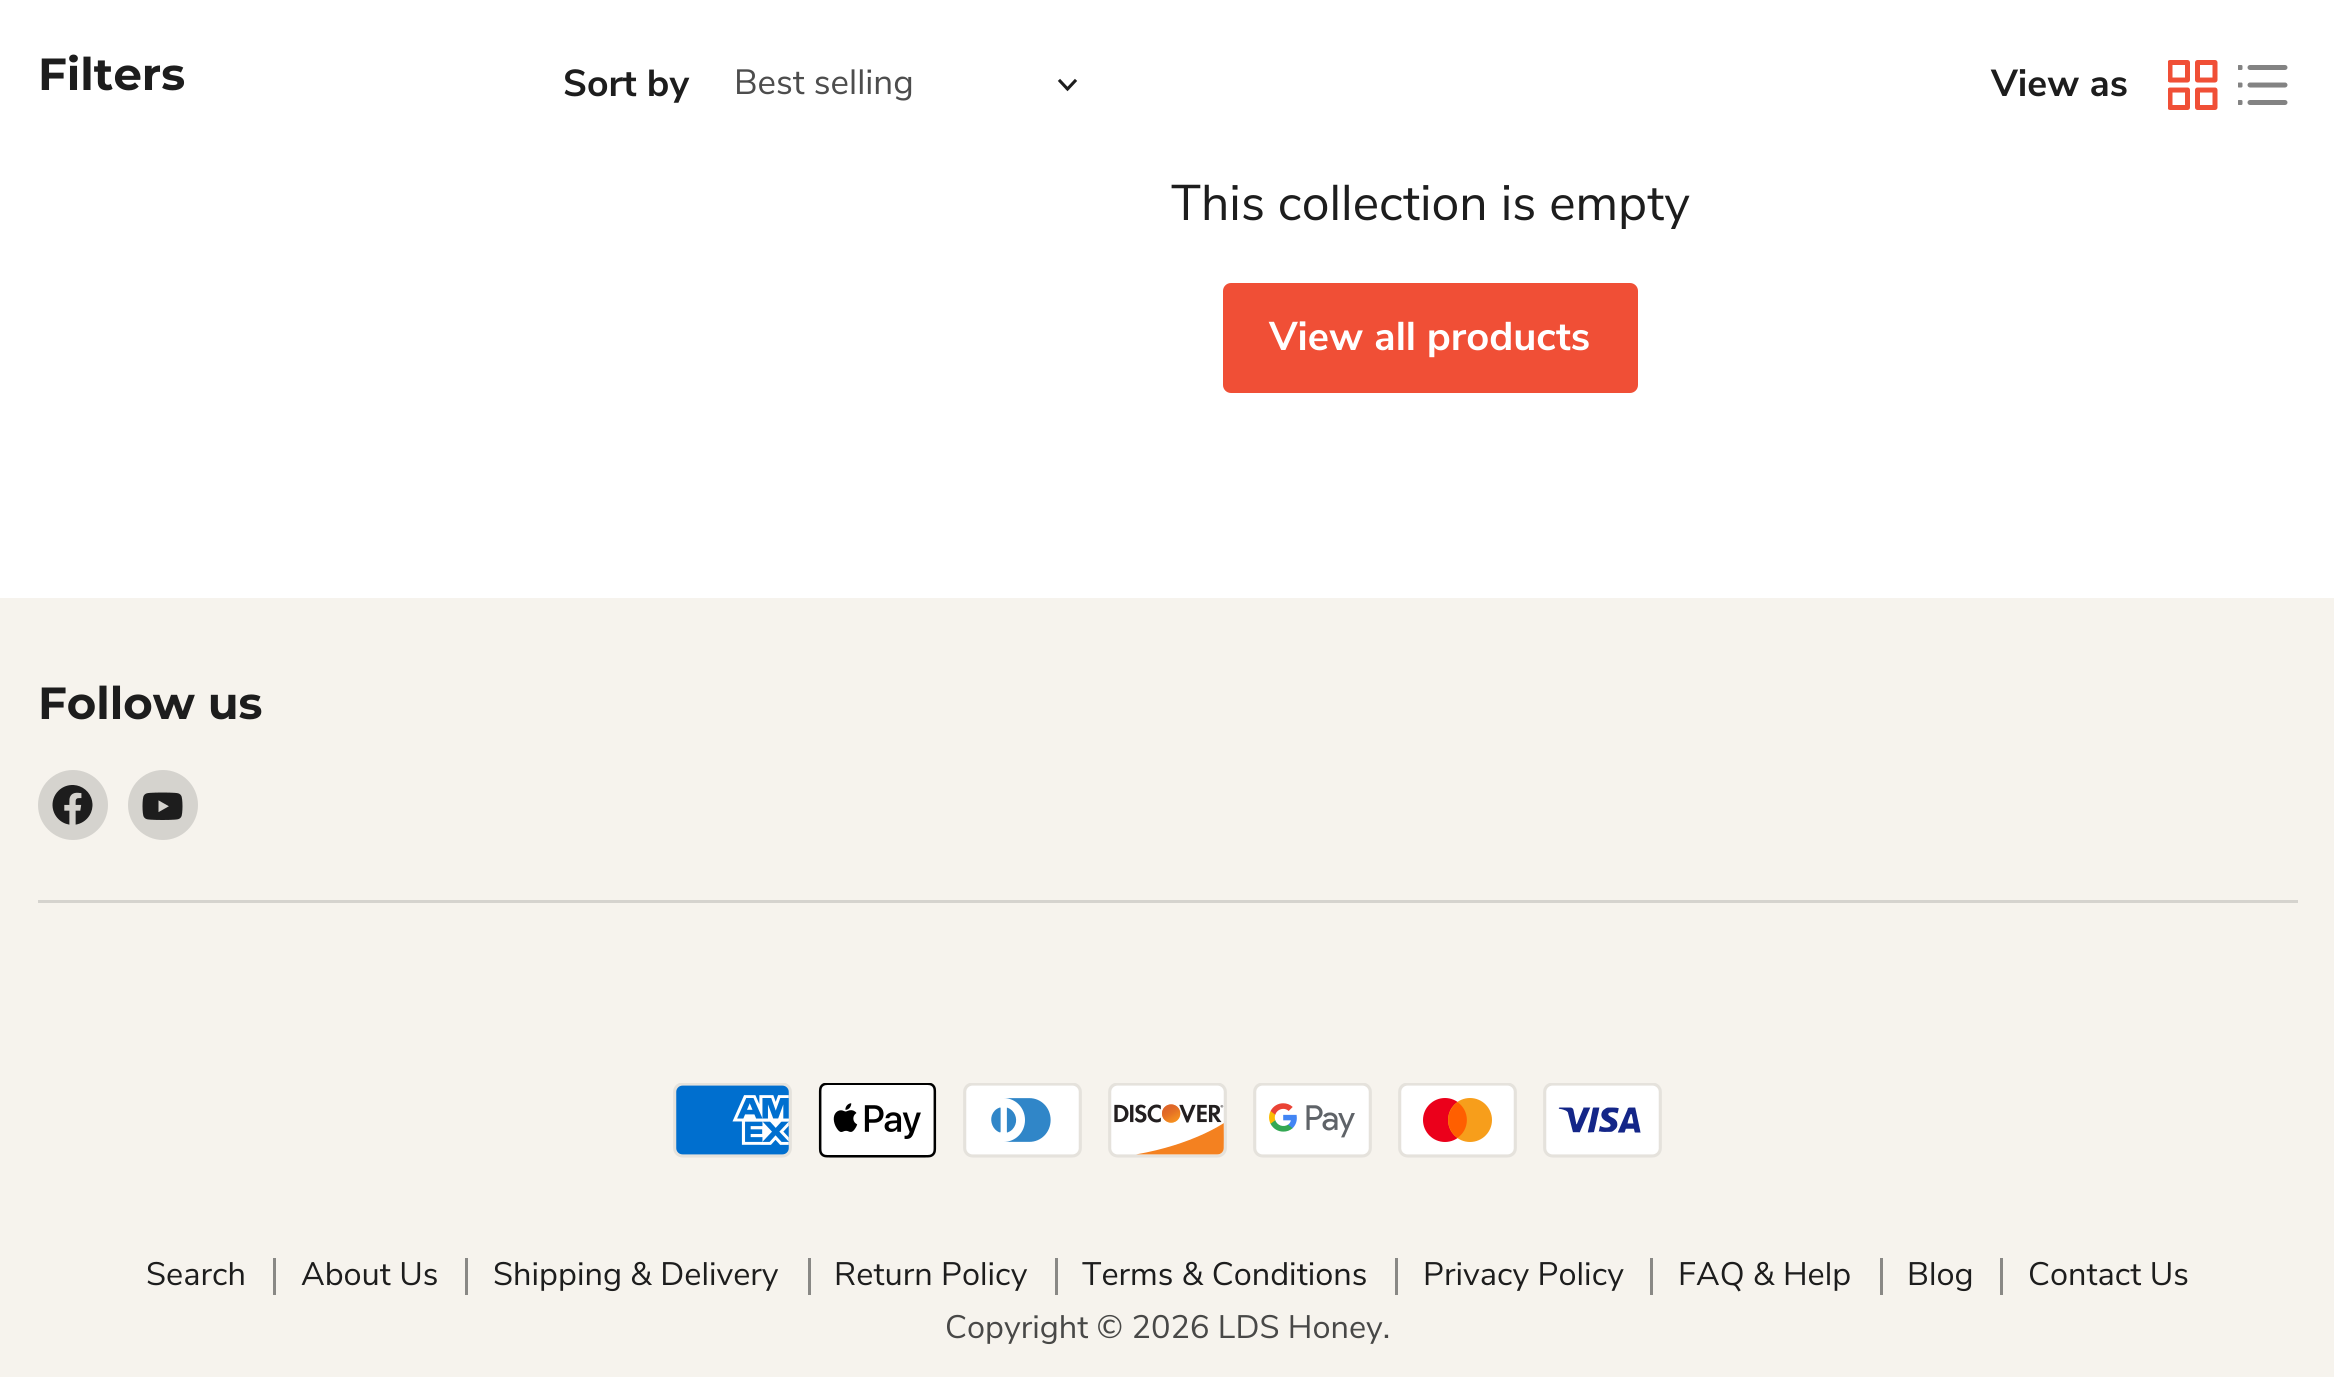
import math
import cairo

surface = cairo.ImageSurface(cairo.FORMAT_RGB24, 2334, 1377)
ctx = cairo.Context(surface)
options = cairo.FontOptions()
options.set_hint_metrics(cairo.HINT_METRICS_OFF)
options.set_hint_style(cairo.HINT_STYLE_NONE)
ctx.set_font_options(options)
ctx.set_miter_limit(4)


def round_rect(x, y, w, h, r):
    ctx.new_sub_path()
    for i, (u, v) in enumerate([(x + w - r, y + h - r), (x + r, y + h - r), (x + r, y + r), (x + w - r, y + r)]):
        ctx.arc(u, v, r, i * math.pi / 2, (i + 1) * math.pi / 2)
    ctx.close_path()


def picture(path, x, y, w, h):
    ctx.save()
    ctx.set_source_surface(cairo.ImageSurface.create_from_png(path), x, y)
    ctx.rectangle(x, y, w, h)
    ctx.fill()
    ctx.restore()


ctx.set_source_rgb(1, 1, 1)
ctx.paint()
ctx.select_font_face("Montserrat", cairo.FONT_SLANT_NORMAL, cairo.FONT_WEIGHT_BOLD)
ctx.set_font_size(45)
ctx.set_source_rgb(0.114, 0.114, 0.114)
ctx.move_to(38, 90)
ctx.show_text("Filters")
ctx.select_font_face("Nunito Sans", cairo.FONT_SLANT_NORMAL, cairo.FONT_WEIGHT_BOLD)
ctx.set_font_size(37.5)
ctx.move_to(563, 96)
ctx.show_text("Sort by")
ctx.select_font_face("Nunito Sans")
ctx.set_font_size(35)
ctx.set_source_rgb(0.302, 0.302, 0.302)
ctx.move_to(734, 94)
ctx.show_text("Best selling")
ctx.new_path()
ctx.move_to(1067.5, 89)
ctx.line_to(1075, 81)
ctx.move_to(1067.5, 89)
ctx.line_to(1060, 81)
ctx.set_source_rgb(0.114, 0.114, 0.114)
ctx.set_line_width(3.1)
ctx.set_line_cap(cairo.LINE_CAP_SQUARE)
ctx.stroke()
ctx.select_font_face("Nunito Sans", cairo.FONT_SLANT_NORMAL, cairo.FONT_WEIGHT_BOLD)
ctx.set_font_size(37.5)
ctx.move_to(1991, 96)
ctx.show_text("View as")
picture("img1.png", 2168, 60, 50, 50)
picture("img2.png", 2238, 65, 50, 40)
ctx.select_font_face("Nunito Sans")
ctx.set_font_size(50)
ctx.move_to(1171, 220)
ctx.show_text("This collection is empty")
ctx.set_source_rgb(0.941, 0.31, 0.212)
round_rect(1224.5, 284.5, 412, 107, 6.5)
ctx.fill_preserve()
ctx.set_line_width(3)
ctx.set_line_cap(cairo.LINE_CAP_BUTT)
ctx.stroke()
ctx.select_font_face("Nunito Sans", cairo.FONT_SLANT_NORMAL, cairo.FONT_WEIGHT_BOLD)
ctx.set_font_size(40)
ctx.set_source_rgb(1, 1, 1)
ctx.move_to(1269, 350)
ctx.show_text("View all products")
ctx.set_source_rgb(0.961, 0.953, 0.929)
ctx.rectangle(0, 598, 2334, 779)
ctx.fill()
ctx.set_source_rgb(0.835, 0.827, 0.808)
ctx.rectangle(38, 900, 2260, 3)
ctx.fill()
ctx.select_font_face("Montserrat", cairo.FONT_SLANT_NORMAL, cairo.FONT_WEIGHT_BOLD)
ctx.set_font_size(45)
ctx.set_source_rgb(0.114, 0.114, 0.114)
ctx.move_to(38, 719)
ctx.show_text("Follow us")
ctx.set_source_rgb(0.835, 0.827, 0.808)
ctx.new_path()
ctx.arc(73, 805, 35, 0, 2 * math.pi)
ctx.fill()
picture("img3.png", 52, 785, 41, 40)
ctx.arc(163, 805, 35, 0, 2 * math.pi)
ctx.fill()
picture("img4.png", 142, 792, 41, 28)
picture("img5.png", 673, 1083, 119, 75)
picture("img6.png", 818, 1083, 119, 75)
picture("img7.png", 963, 1083, 119, 75)
picture("img8.png", 1108, 1083, 119, 75)
picture("img9.png", 1253, 1083, 119, 75)
picture("img10.png", 1398, 1083, 119, 75)
picture("img11.png", 1543, 1083, 119, 75)
ctx.set_source_rgb(0.537, 0.533, 0.522)
ctx.rectangle(273, 1258, 3, 37)
ctx.fill()
ctx.select_font_face("Nunito Sans")
ctx.set_font_size(32.5)
ctx.set_source_rgb(0.114, 0.114, 0.114)
ctx.move_to(146, 1285)
ctx.show_text("Search")
ctx.set_source_rgb(0.537, 0.533, 0.522)
ctx.rectangle(465, 1258, 3, 37)
ctx.fill()
ctx.set_source_rgb(0.114, 0.114, 0.114)
ctx.move_to(301, 1285)
ctx.show_text("About Us")
ctx.set_source_rgb(0.537, 0.533, 0.522)
ctx.rectangle(808, 1258, 3, 37)
ctx.fill()
ctx.set_source_rgb(0.114, 0.114, 0.114)
ctx.move_to(493, 1285)
ctx.show_text("Shipping & Delivery")
ctx.set_source_rgb(0.537, 0.533, 0.522)
ctx.rectangle(1055, 1258, 3, 37)
ctx.fill()
ctx.set_source_rgb(0.114, 0.114, 0.114)
ctx.move_to(834, 1285)
ctx.show_text("Return Policy")
ctx.set_source_rgb(0.537, 0.533, 0.522)
ctx.rectangle(1395, 1258, 3, 37)
ctx.fill()
ctx.set_source_rgb(0.114, 0.114, 0.114)
ctx.move_to(1082, 1285)
ctx.show_text("Terms & Conditions")
ctx.set_source_rgb(0.537, 0.533, 0.522)
ctx.rectangle(1650, 1258, 3, 37)
ctx.fill()
ctx.set_source_rgb(0.114, 0.114, 0.114)
ctx.move_to(1423, 1285)
ctx.show_text("Privacy Policy")
ctx.set_source_rgb(0.537, 0.533, 0.522)
ctx.rectangle(1880, 1258, 3, 37)
ctx.fill()
ctx.set_source_rgb(0.114, 0.114, 0.114)
ctx.move_to(1678, 1285)
ctx.show_text("FAQ & Help")
ctx.set_source_rgb(0.537, 0.533, 0.522)
ctx.rectangle(2000, 1258, 3, 37)
ctx.fill()
ctx.set_source_rgb(0.114, 0.114, 0.114)
ctx.move_to(1907, 1285)
ctx.show_text("Blog")
ctx.move_to(2028, 1285)
ctx.show_text("Contact Us")
ctx.set_source_rgb(0.282, 0.282, 0.278)
ctx.move_to(945, 1338)
ctx.show_text("Copyright © 2026 LDS Honey.")
surface.write_to_png("page.png")
